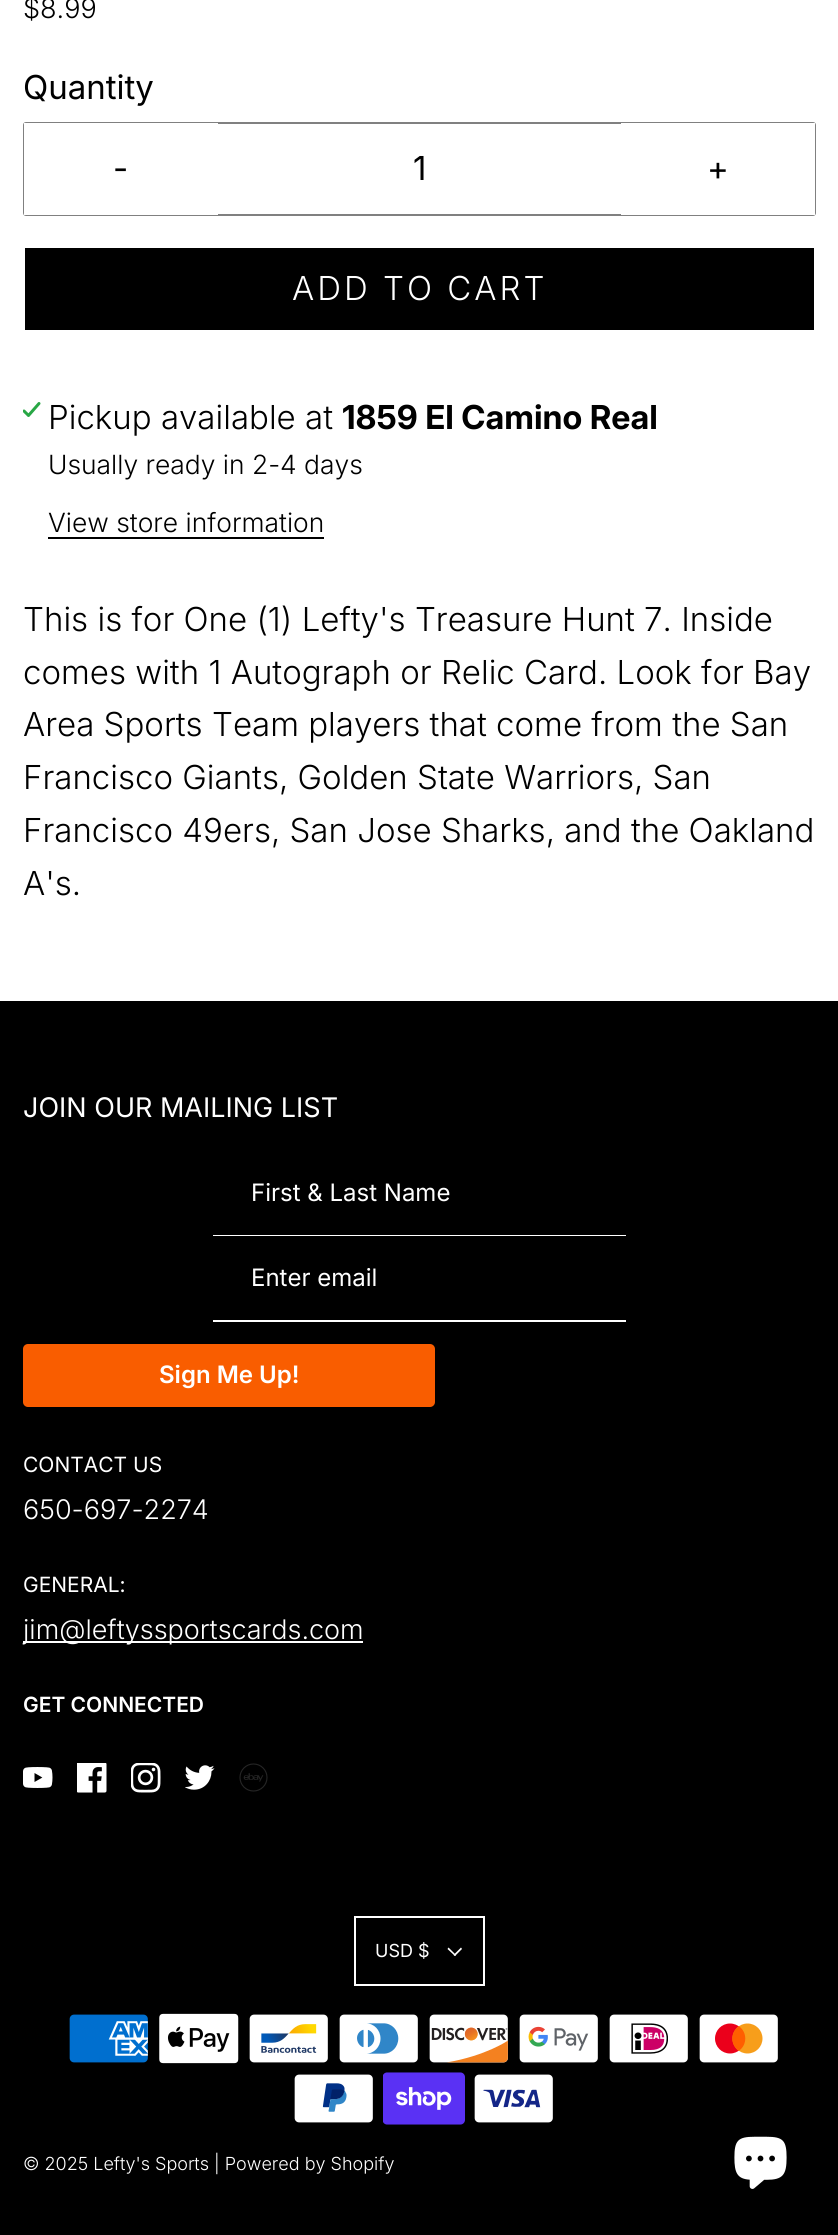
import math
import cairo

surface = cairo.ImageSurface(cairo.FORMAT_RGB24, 838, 2235)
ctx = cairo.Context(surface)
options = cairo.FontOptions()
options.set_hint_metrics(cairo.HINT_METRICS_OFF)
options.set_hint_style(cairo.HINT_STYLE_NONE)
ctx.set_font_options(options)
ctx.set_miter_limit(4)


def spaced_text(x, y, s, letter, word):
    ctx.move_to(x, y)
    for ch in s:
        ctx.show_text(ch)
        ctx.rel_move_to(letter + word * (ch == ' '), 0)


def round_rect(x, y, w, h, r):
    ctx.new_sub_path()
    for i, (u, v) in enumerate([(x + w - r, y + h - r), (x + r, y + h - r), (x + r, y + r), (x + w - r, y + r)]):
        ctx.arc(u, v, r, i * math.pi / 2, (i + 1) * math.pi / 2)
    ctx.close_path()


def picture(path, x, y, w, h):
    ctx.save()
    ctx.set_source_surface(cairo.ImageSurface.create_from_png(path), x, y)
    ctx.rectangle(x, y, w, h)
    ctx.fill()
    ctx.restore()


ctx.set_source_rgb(1, 1, 1)
ctx.paint()
ctx.select_font_face("Inter Light")
ctx.set_font_size(27)
ctx.set_source_rgb(0, 0, 0)
ctx.move_to(23, 18)
ctx.show_text("$8.99")
ctx.select_font_face("Inter")
ctx.set_font_size(33)
ctx.move_to(23, 99)
ctx.show_text("Quantity")
round_rect(24, 123, 791, 92, 2)
ctx.set_source_rgb(0.502, 0.502, 0.502)
ctx.stroke()
ctx.set_source_rgb(1, 1, 1)
ctx.rectangle(24, 123, 194, 92)
ctx.fill()
ctx.set_source_rgb(0, 0, 0)
ctx.move_to(113, 180)
ctx.show_text("-")
ctx.move_to(413, 180)
ctx.show_text("1")
ctx.set_source_rgb(1, 1, 1)
ctx.rectangle(621, 123, 194, 92)
ctx.fill()
ctx.set_source_rgb(0, 0, 0)
ctx.move_to(707, 180)
ctx.show_text("+")
ctx.rectangle(25, 248, 789, 82)
ctx.fill()
ctx.select_font_face("Inter Light")
ctx.set_source_rgb(1, 1, 1)
spaced_text(292, 300, "ADD TO CART", 3, 0)
picture("img1.png", 23, 402, 18, 15)
ctx.set_source_rgb(0, 0, 0)
ctx.move_to(48, 429)
ctx.show_text("Pickup available at")
ctx.select_font_face("Inter", cairo.FONT_SLANT_NORMAL, cairo.FONT_WEIGHT_BOLD)
ctx.move_to(342, 429)
ctx.show_text("1859 El Camino Real")
ctx.select_font_face("Inter Light")
ctx.set_font_size(26.4)
ctx.move_to(48, 474)
ctx.show_text("Usually ready in 2-4 days")
ctx.move_to(48, 532)
ctx.show_text("View store information")
ctx.rectangle(48, 537, 276, 2)
ctx.fill()
ctx.set_font_size(33)
ctx.move_to(23, 631)
ctx.show_text("This is for One (1) Lefty's Treasure Hunt 7. Inside")
ctx.move_to(23, 684)
ctx.show_text("comes with 1 Autograph or Relic Card. Look for Bay")
ctx.move_to(23, 736)
ctx.show_text("Area Sports Team players that come from the San")
ctx.move_to(23, 789)
ctx.show_text("Francisco Giants, Golden State Warriors, San")
ctx.move_to(23, 842)
ctx.show_text("Francisco 49ers, San Jose Sharks, and the Oakland")
ctx.move_to(23, 895)
ctx.show_text("A's.")
ctx.rectangle(0, 1001, 838, 1234)
ctx.fill()
ctx.select_font_face("Inter")
ctx.set_font_size(27)
ctx.set_source_rgb(1, 1, 1)
ctx.move_to(23, 1117)
ctx.show_text("JOIN OUR MAILING LIST")
ctx.rectangle(213, 1235, 413, 1)
ctx.fill()
ctx.set_font_size(24)
ctx.move_to(251, 1201)
ctx.show_text("First & Last Name")
ctx.rectangle(213, 1320, 413, 2)
ctx.fill()
ctx.move_to(251, 1286)
ctx.show_text("Enter email")
ctx.set_source_rgb(0.973, 0.365, 0)
round_rect(23, 1344, 412, 63, 5)
ctx.fill()
ctx.select_font_face("Inter SemiBold")
ctx.set_source_rgb(1, 1, 1)
ctx.move_to(159, 1383)
ctx.show_text("Sign Me Up!")
ctx.select_font_face("Inter")
ctx.set_font_size(21)
ctx.move_to(23, 1472)
ctx.show_text("CONTACT US")
ctx.select_font_face("Inter Light")
ctx.set_font_size(27)
ctx.move_to(23, 1519)
ctx.show_text("650-697-2274")
ctx.select_font_face("Inter")
ctx.set_font_size(21)
ctx.move_to(23, 1592)
ctx.show_text("GENERAL:")
ctx.rectangle(23, 1641, 340, 2)
ctx.fill()
ctx.select_font_face("Inter Light")
ctx.set_font_size(27)
ctx.move_to(23, 1639)
ctx.show_text("jim@leftyssportscards.com")
ctx.select_font_face("Inter SemiBold")
ctx.set_font_size(21)
ctx.move_to(23, 1712)
ctx.show_text("GET CONNECTED")
picture("img2.png", 23, 1767, 30, 21)
picture("img3.png", 77, 1763, 30, 30)
picture("img4.png", 131, 1763, 30, 30)
picture("img5.png", 185, 1765, 30, 25)
picture("img6.png", 239, 1763, 29, 29)
ctx.rectangle(355, 1917, 129, 68)
ctx.stroke()
ctx.select_font_face("Inter")
ctx.set_font_size(18)
ctx.move_to(375, 1957)
ctx.show_text("USD $")
ctx.new_path()
ctx.move_to(461, 1947.5)
ctx.line_to(462, 1949)
ctx.line_to(455, 1956)
ctx.line_to(453.5, 1955)
ctx.close_path()
ctx.fill()
ctx.new_path()
ctx.move_to(448.5, 1947.5)
ctx.line_to(456, 1955)
ctx.line_to(455, 1956)
ctx.line_to(447.5, 1949)
ctx.close_path()
ctx.fill()
picture("img7.png", 69, 2014, 79, 49)
picture("img8.png", 159, 2013, 80, 51)
picture("img9.png", 249, 2014, 79, 49)
picture("img10.png", 339, 2014, 79, 49)
picture("img11.png", 429, 2014, 79, 49)
picture("img12.png", 519, 2014, 79, 49)
picture("img13.png", 609, 2014, 79, 49)
picture("img14.png", 699, 2014, 79, 49)
picture("img15.png", 294, 2074, 79, 49)
picture("img16.png", 383, 2072, 82, 53)
picture("img17.png", 474, 2074, 79, 49)
ctx.select_font_face("Inter Light")
ctx.move_to(23, 2170)
ctx.show_text("© 2025 Lefty's Sports | Powered by Shopify")
picture("img18.png", 734, 2136, 53, 53)
surface.write_to_png("page.png")
